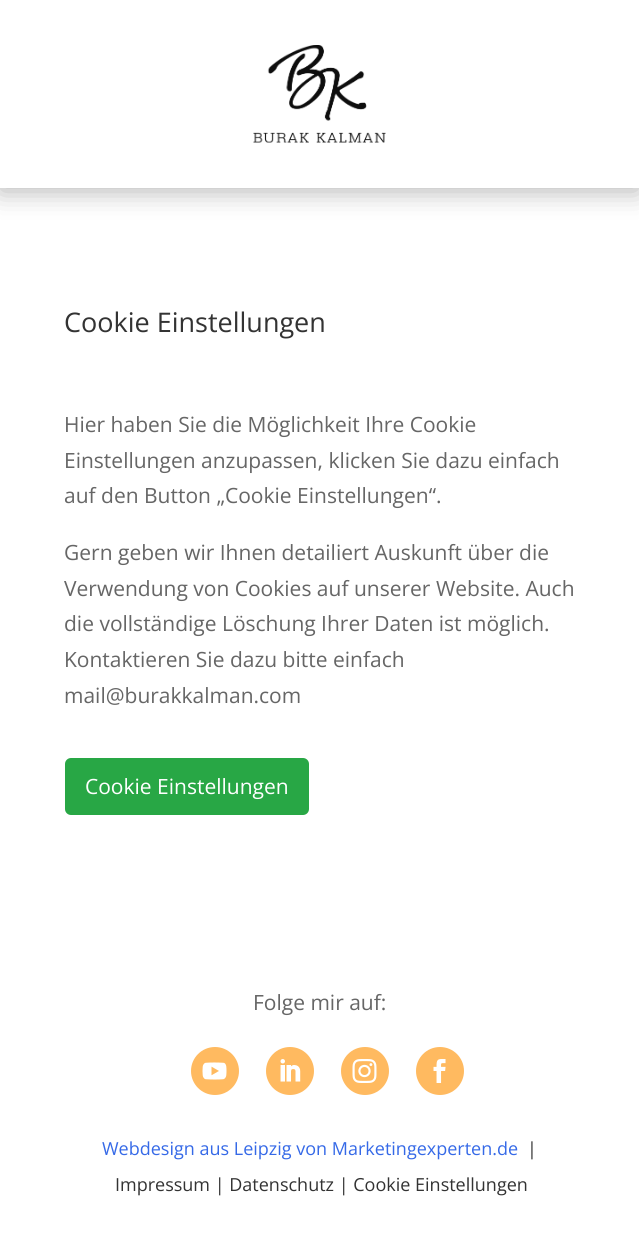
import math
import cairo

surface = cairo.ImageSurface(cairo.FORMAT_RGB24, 639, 1240)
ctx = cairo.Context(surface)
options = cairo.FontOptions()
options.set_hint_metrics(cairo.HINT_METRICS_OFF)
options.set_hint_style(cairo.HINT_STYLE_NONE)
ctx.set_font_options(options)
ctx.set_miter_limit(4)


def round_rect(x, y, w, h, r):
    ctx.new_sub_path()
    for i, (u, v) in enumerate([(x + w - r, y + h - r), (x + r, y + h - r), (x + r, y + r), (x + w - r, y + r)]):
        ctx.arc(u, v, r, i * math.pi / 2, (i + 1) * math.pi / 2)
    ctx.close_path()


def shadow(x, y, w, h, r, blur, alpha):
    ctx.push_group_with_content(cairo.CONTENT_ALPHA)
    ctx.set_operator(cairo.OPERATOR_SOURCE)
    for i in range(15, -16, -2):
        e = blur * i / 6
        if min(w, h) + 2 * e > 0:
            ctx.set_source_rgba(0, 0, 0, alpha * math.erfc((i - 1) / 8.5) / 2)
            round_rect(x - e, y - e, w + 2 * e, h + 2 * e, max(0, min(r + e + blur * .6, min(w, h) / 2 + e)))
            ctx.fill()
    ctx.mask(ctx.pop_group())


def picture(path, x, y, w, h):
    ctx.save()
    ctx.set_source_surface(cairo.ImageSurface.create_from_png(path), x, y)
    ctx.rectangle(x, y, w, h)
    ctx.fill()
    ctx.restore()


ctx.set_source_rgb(1, 1, 1)
ctx.paint()
ctx.save()
ctx.set_fill_rule(cairo.FILL_RULE_EVEN_ODD)
ctx.new_path()
ctx.move_to(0, 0)
ctx.line_to(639, 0)
ctx.line_to(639, 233)
ctx.line_to(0, 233)
ctx.close_path()
ctx.move_to(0, 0)
ctx.line_to(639, 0)
ctx.line_to(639, 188)
ctx.line_to(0, 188)
ctx.close_path()
ctx.clip()
ctx.set_source_rgb(0, 0, 0)
shadow(0, 3, 639, 188, 0, 13.5, 0.3)
ctx.restore()
ctx.set_source_rgba(1, 1, 1, 0.57)
ctx.rectangle(0, 187, 639, 1)
ctx.fill()
picture("img1.png", 253, 45, 133, 98)
ctx.select_font_face("Open Sans")
ctx.set_font_size(27)
ctx.set_source_rgb(0.2, 0.2, 0.2)
ctx.move_to(64, 332)
ctx.show_text("Cookie Einstellungen")
ctx.set_font_size(21)
ctx.set_source_rgb(0.4, 0.4, 0.4)
ctx.move_to(64, 432)
ctx.show_text("Hier haben Sie die Möglichkeit Ihre Cookie")
ctx.move_to(64, 468)
ctx.show_text("Einstellungen anzupassen, klicken Sie dazu einfach")
ctx.move_to(64, 503)
ctx.show_text("auf den Button „Cookie Einstellungen“.")
ctx.move_to(64, 560)
ctx.show_text("Gern geben wir Ihnen detailiert Auskunft über die")
ctx.move_to(64, 596)
ctx.show_text("Verwendung von Cookies auf unserer Website. Auch")
ctx.move_to(64, 631)
ctx.show_text("die vollständige Löschung Ihrer Daten ist möglich.")
ctx.move_to(64, 667)
ctx.show_text("Kontaktieren Sie dazu bitte einfach")
ctx.move_to(64, 703)
ctx.show_text("mail@burakkalman.com")
ctx.set_source_rgb(0.157, 0.655, 0.271)
round_rect(65, 758, 244, 57, 6)
ctx.fill()
ctx.set_source_rgb(1, 1, 1)
ctx.move_to(85, 794)
ctx.show_text("Cookie Einstellungen")
ctx.set_source_rgb(0.4, 0.4, 0.4)
ctx.move_to(253, 1010)
ctx.show_text("Folge mir auf:")
ctx.set_source_rgb(1, 0.729, 0.376)
ctx.new_path()
ctx.arc(215, 1071, 24, 0, 2 * math.pi)
ctx.fill()
picture("img2.png", 202, 1062, 25, 18)
ctx.arc(290, 1071, 24, 0, 2 * math.pi)
ctx.fill()
picture("img3.png", 280, 1059, 21, 23)
ctx.arc(365, 1071, 24, 0, 2 * math.pi)
ctx.fill()
picture("img4.png", 352, 1059, 25, 24)
ctx.arc(440, 1071, 24, 0, 2 * math.pi)
ctx.fill()
picture("img5.png", 433, 1059, 13, 24)
ctx.set_font_size(18)
ctx.set_source_rgb(0.208, 0.412, 0.906)
ctx.move_to(102, 1155)
ctx.show_text("Webdesign aus Leipzig von Marketingexperten.de")
ctx.set_source_rgb(0.2, 0.2, 0.2)
ctx.move_to(527, 1155)
ctx.show_text("|")
ctx.move_to(115, 1191)
ctx.show_text("Impressum | Datenschutz | Cookie Einstellungen")
surface.write_to_png("page.png")
